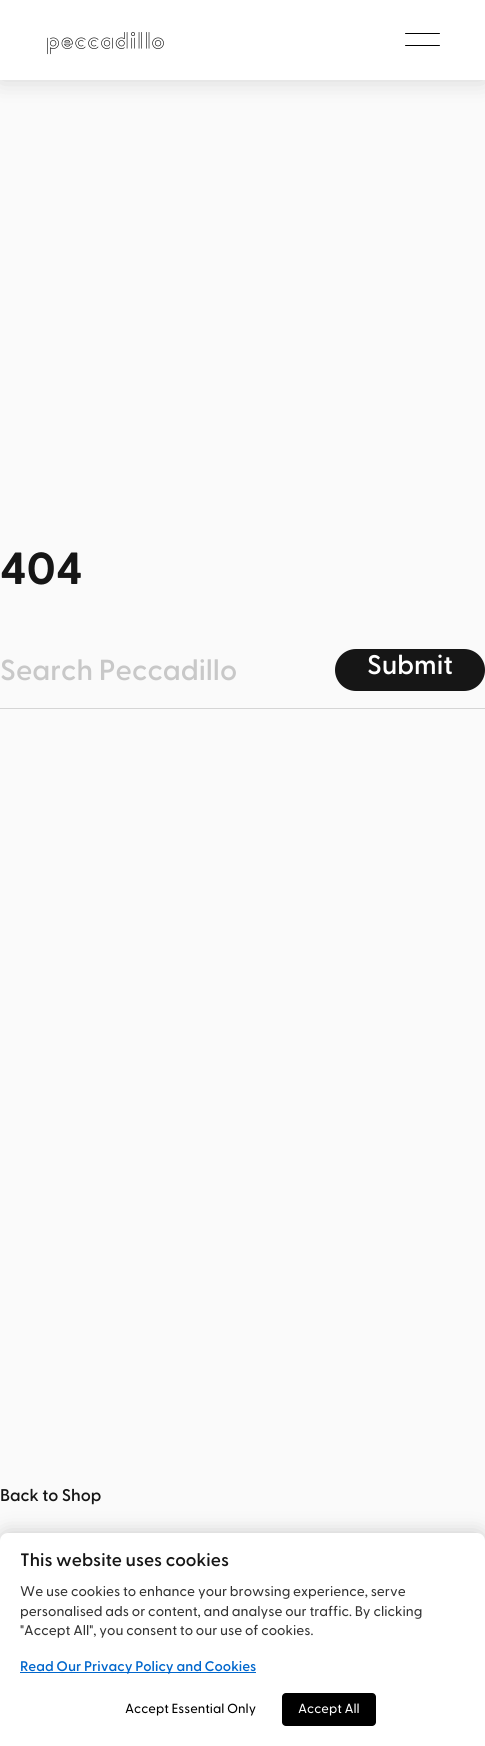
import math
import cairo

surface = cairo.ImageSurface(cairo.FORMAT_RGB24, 485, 1746)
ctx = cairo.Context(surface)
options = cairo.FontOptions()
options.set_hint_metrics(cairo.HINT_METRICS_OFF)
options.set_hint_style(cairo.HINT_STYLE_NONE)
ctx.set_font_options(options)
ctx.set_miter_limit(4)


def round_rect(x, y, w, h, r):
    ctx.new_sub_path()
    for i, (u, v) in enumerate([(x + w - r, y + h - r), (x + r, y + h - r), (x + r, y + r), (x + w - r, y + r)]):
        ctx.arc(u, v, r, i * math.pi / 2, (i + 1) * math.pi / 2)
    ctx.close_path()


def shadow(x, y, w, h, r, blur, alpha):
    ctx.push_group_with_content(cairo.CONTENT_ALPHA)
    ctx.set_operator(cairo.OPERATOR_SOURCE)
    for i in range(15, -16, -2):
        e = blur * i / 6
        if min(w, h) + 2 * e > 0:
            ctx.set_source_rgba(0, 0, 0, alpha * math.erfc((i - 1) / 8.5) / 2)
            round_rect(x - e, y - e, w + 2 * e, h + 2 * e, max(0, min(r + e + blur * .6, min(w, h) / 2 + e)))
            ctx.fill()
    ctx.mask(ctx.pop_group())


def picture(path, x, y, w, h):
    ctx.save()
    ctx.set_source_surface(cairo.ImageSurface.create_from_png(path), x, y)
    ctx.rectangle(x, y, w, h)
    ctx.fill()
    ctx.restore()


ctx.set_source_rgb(0.98, 0.98, 0.98)
ctx.paint()
ctx.set_source_rgb(0, 0, 0)
shadow(0, 0, 485, 80, 0, 12.5, 0.15)
ctx.set_source_rgb(1, 1, 1)
ctx.rectangle(0, 0, 485, 80)
ctx.fill()
picture("img1.png", 47, 32, 117, 23)
ctx.set_source_rgb(0, 0, 0)
round_rect(405, 33, 35, 1, 0.5)
ctx.fill()
round_rect(405, 45, 35, 1, 0.5)
ctx.fill()
ctx.select_font_face("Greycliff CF", cairo.FONT_SLANT_NORMAL, cairo.FONT_WEIGHT_BOLD)
ctx.set_font_size(45)
ctx.set_source_rgb(0.086, 0.086, 0.086)
ctx.move_to(0, 584)
ctx.show_text("404")
ctx.set_source_rgb(0.835, 0.835, 0.835)
ctx.rectangle(0, 708, 485, 1)
ctx.fill()
ctx.select_font_face("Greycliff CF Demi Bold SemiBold")
ctx.set_font_size(29)
ctx.set_source_rgb(0.784, 0.784, 0.784)
ctx.move_to(0, 680)
ctx.show_text("Search Peccadillo")
ctx.set_source_rgb(0.086, 0.086, 0.086)
round_rect(336, 650, 148, 40, 20)
ctx.fill_preserve()
ctx.stroke()
ctx.set_font_size(27)
ctx.set_source_rgb(1, 1, 1)
ctx.move_to(367, 674)
ctx.show_text("Submit")
ctx.set_font_size(17)
ctx.set_source_rgb(0.086, 0.086, 0.086)
ctx.move_to(0, 1501)
ctx.show_text("Back to Shop")
ctx.set_source_rgb(0, 0, 0)
shadow(0, 1533, 485, 213, 8, 10, 0.2)
ctx.set_source_rgb(1, 1, 1)
ctx.new_path()
ctx.move_to(8, 1533)
ctx.line_to(477, 1533)
ctx.curve_to(481.5, 1533, 485, 1536.5, 485, 1541)
ctx.line_to(485, 1746)
ctx.line_to(0, 1746)
ctx.line_to(0, 1541)
ctx.curve_to(0, 1536.5, 3.5, 1533, 8, 1533)
ctx.close_path()
ctx.fill()
ctx.set_font_size(18)
ctx.set_source_rgb(0.086, 0.086, 0.086)
ctx.move_to(20, 1566)
ctx.show_text("This website uses cookies")
ctx.select_font_face("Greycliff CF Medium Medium")
ctx.set_font_size(14)
ctx.set_source_rgb(0.2, 0.2, 0.2)
ctx.move_to(20, 1596)
ctx.show_text("We use cookies to enhance your browsing experience, serve")
ctx.move_to(20, 1616)
ctx.show_text("personalised ads or content, and analyse our traffic. By clicking")
ctx.move_to(20, 1635)
ctx.show_text("\"Accept All\", you consent to our use of cookies.")
ctx.set_source_rgb(0, 0.4, 0.8)
ctx.rectangle(20, 1672, 236, 1)
ctx.fill()
ctx.select_font_face("Greycliff CF Demi Bold SemiBold")
ctx.move_to(20, 1671)
ctx.show_text("Read Our Privacy Policy and Cookies")
ctx.select_font_face("Greycliff CF Medium Medium")
ctx.set_font_size(13.25)
ctx.set_source_rgb(0, 0, 0)
ctx.move_to(125, 1713)
ctx.show_text("Accept Essential Only")
round_rect(282, 1693, 94, 33, 4)
ctx.fill()
ctx.set_source_rgb(1, 1, 1)
ctx.move_to(298, 1713)
ctx.show_text("Accept All")
surface.write_to_png("page.png")
